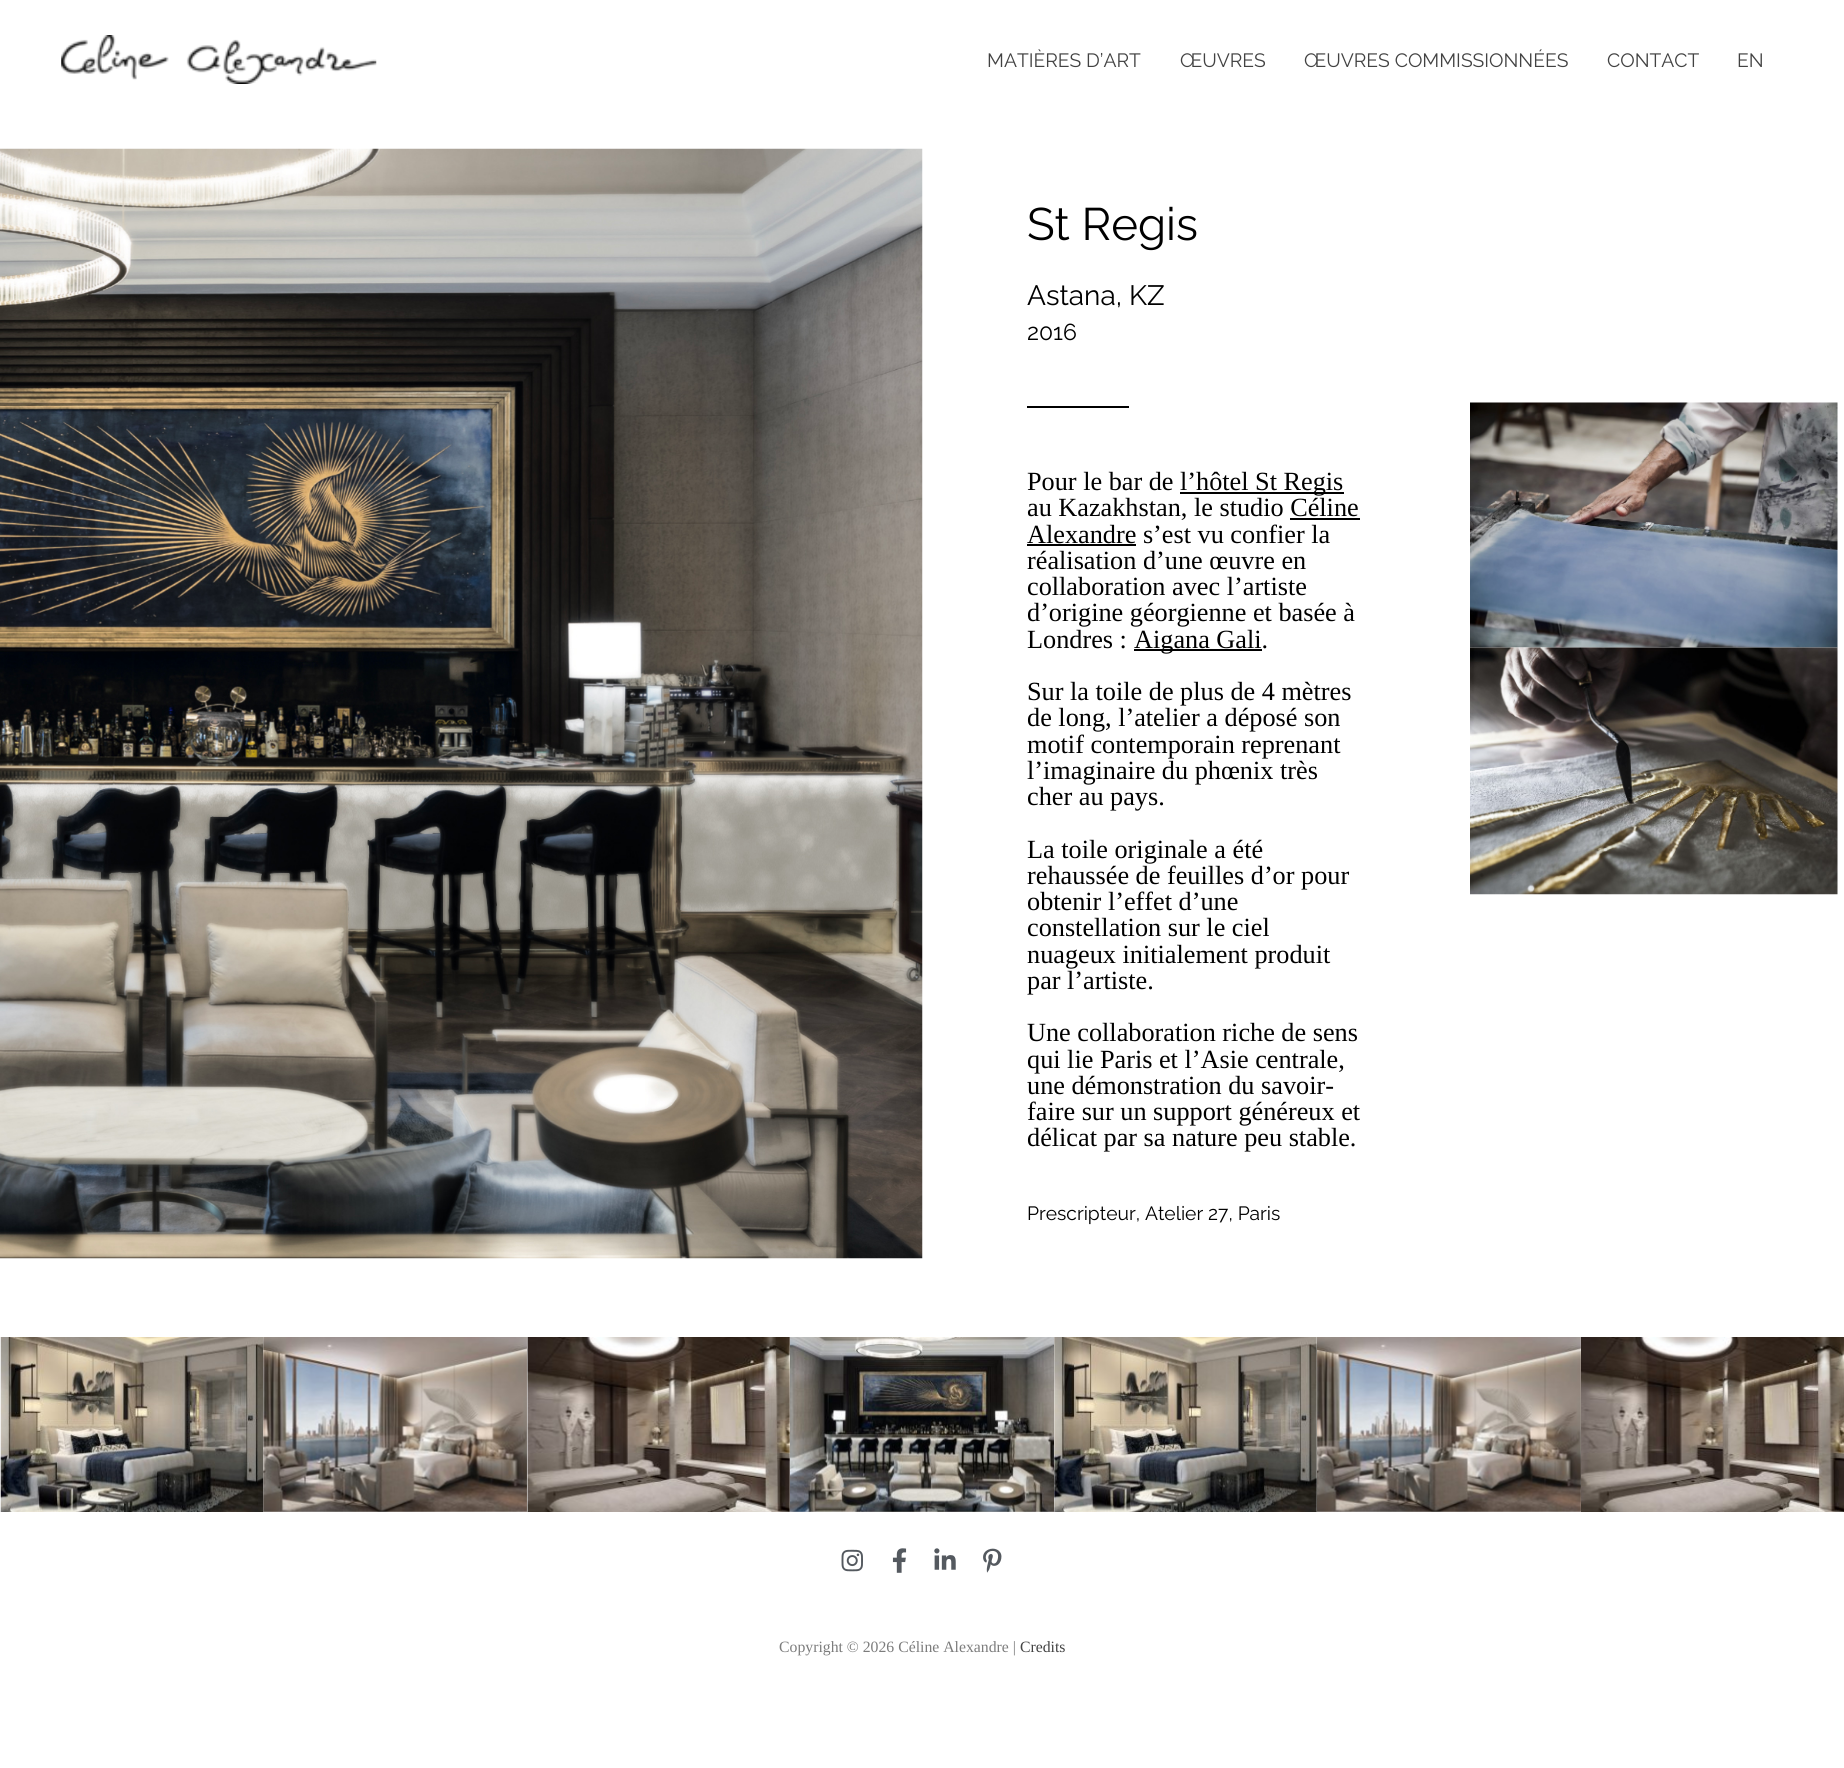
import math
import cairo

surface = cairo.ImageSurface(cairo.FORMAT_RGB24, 1844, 1768)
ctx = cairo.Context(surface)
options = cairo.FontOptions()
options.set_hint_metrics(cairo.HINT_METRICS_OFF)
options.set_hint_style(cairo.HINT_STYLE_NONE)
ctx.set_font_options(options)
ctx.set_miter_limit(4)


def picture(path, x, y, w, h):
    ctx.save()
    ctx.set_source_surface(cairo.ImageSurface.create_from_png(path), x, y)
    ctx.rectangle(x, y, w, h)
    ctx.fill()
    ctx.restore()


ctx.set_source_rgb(1, 1, 1)
ctx.paint()
picture("img1.png", 61, 35, 316, 49)
ctx.select_font_face("Raleway Thin")
ctx.set_font_size(19.25)
ctx.set_source_rgb(0.259, 0.259, 0.259)
ctx.move_to(987, 67)
ctx.show_text("MATIÈRES D’ART")
ctx.move_to(1180, 67)
ctx.show_text("ŒUVRES")
ctx.move_to(1304, 67)
ctx.show_text("ŒUVRES COMMISSIONNÉES")
ctx.move_to(1607, 67)
ctx.show_text("CONTACT")
ctx.move_to(1737, 67)
ctx.show_text("EN")
picture("img2.png", 0, 148, 923, 1111)
ctx.set_font_size(45.5)
ctx.set_source_rgb(0, 0, 0)
ctx.move_to(1027, 240)
ctx.show_text("St Regis")
ctx.set_font_size(28)
ctx.move_to(1027, 305)
ctx.show_text("Astana, KZ")
ctx.set_font_size(23)
ctx.move_to(1027, 340)
ctx.show_text("2016")
ctx.rectangle(1027, 406, 102, 2)
ctx.fill()
ctx.select_font_face("Liberation Serif")
ctx.set_font_size(26.25)
ctx.move_to(1027, 490)
ctx.show_text("Pour le bar de")
ctx.rectangle(1180, 492, 164, 2)
ctx.fill()
ctx.move_to(1180, 490)
ctx.show_text("l’hôtel St Regis")
ctx.move_to(1027, 516)
ctx.show_text("au Kazakhstan, le studio Céline")
ctx.move_to(1027, 543)
ctx.show_text("Alexandre s’est vu confier la")
ctx.rectangle(1290, 518, 70, 2)
ctx.fill()
ctx.rectangle(1027, 544, 109, 2)
ctx.fill()
ctx.move_to(1027, 569)
ctx.show_text("réalisation d’une œuvre en")
ctx.move_to(1027, 595)
ctx.show_text("collaboration avec l’artiste")
ctx.move_to(1027, 621)
ctx.show_text("d’origine géorgienne et basée à")
ctx.move_to(1027, 648)
ctx.show_text("Londres :")
ctx.rectangle(1134, 649, 128, 2)
ctx.fill()
ctx.move_to(1134, 648)
ctx.show_text("Aigana Gali.")
ctx.move_to(1027, 700)
ctx.show_text("Sur la toile de plus de 4 mètres")
ctx.move_to(1027, 726)
ctx.show_text("de long, l’atelier a déposé son")
ctx.move_to(1027, 753)
ctx.show_text("motif contemporain reprenant")
ctx.move_to(1027, 779)
ctx.show_text("l’imaginaire du phœnix très")
ctx.move_to(1027, 805)
ctx.show_text("cher au pays.")
ctx.move_to(1027, 858)
ctx.show_text("La toile originale a été")
ctx.move_to(1027, 884)
ctx.show_text("rehaussée de feuilles d’or pour")
ctx.move_to(1027, 910)
ctx.show_text("obtenir l’effet d’une")
ctx.move_to(1027, 936)
ctx.show_text("constellation sur le ciel")
ctx.move_to(1027, 963)
ctx.show_text("nuageux initialement produit")
ctx.move_to(1027, 989)
ctx.show_text("par l’artiste.")
ctx.move_to(1027, 1041)
ctx.show_text("Une collaboration riche de sens")
ctx.move_to(1027, 1068)
ctx.show_text("qui lie Paris et l’Asie centrale,")
ctx.move_to(1027, 1094)
ctx.show_text("une démonstration du savoir-")
ctx.move_to(1027, 1120)
ctx.show_text("faire sur un support généreux et")
ctx.move_to(1027, 1146)
ctx.show_text("délicat par sa nature peu stable.")
ctx.select_font_face("Raleway Thin")
ctx.set_font_size(19.25)
ctx.move_to(1027, 1220)
ctx.show_text("Prescripteur, Atelier 27, Paris")
picture("img3.png", 1470, 402, 368, 246)
picture("img4.png", 1470, 647, 368, 248)
picture("img5.png", 0, 1337, 264, 175)
picture("img6.png", 263, 1337, 264, 175)
picture("img7.png", 527, 1337, 263, 175)
picture("img8.png", 790, 1337, 264, 175)
picture("img9.png", 1054, 1337, 263, 175)
picture("img10.png", 1317, 1337, 264, 175)
picture("img11.png", 1581, 1337, 263, 175)
picture("img12.png", 841, 1549, 22, 23)
picture("img13.png", 892, 1548, 15, 25)
picture("img14.png", 934, 1548, 22, 22)
picture("img15.png", 983, 1548, 19, 25)
ctx.select_font_face("Liberation Serif")
ctx.set_font_size(15.75)
ctx.set_source_rgb(0.486, 0.486, 0.486)
ctx.move_to(779, 1652)
ctx.show_text("Copyright © 2026 Céline Alexandre |")
ctx.set_source_rgb(0.259, 0.259, 0.259)
ctx.move_to(1020, 1652)
ctx.show_text("Credits")
surface.write_to_png("page.png")
